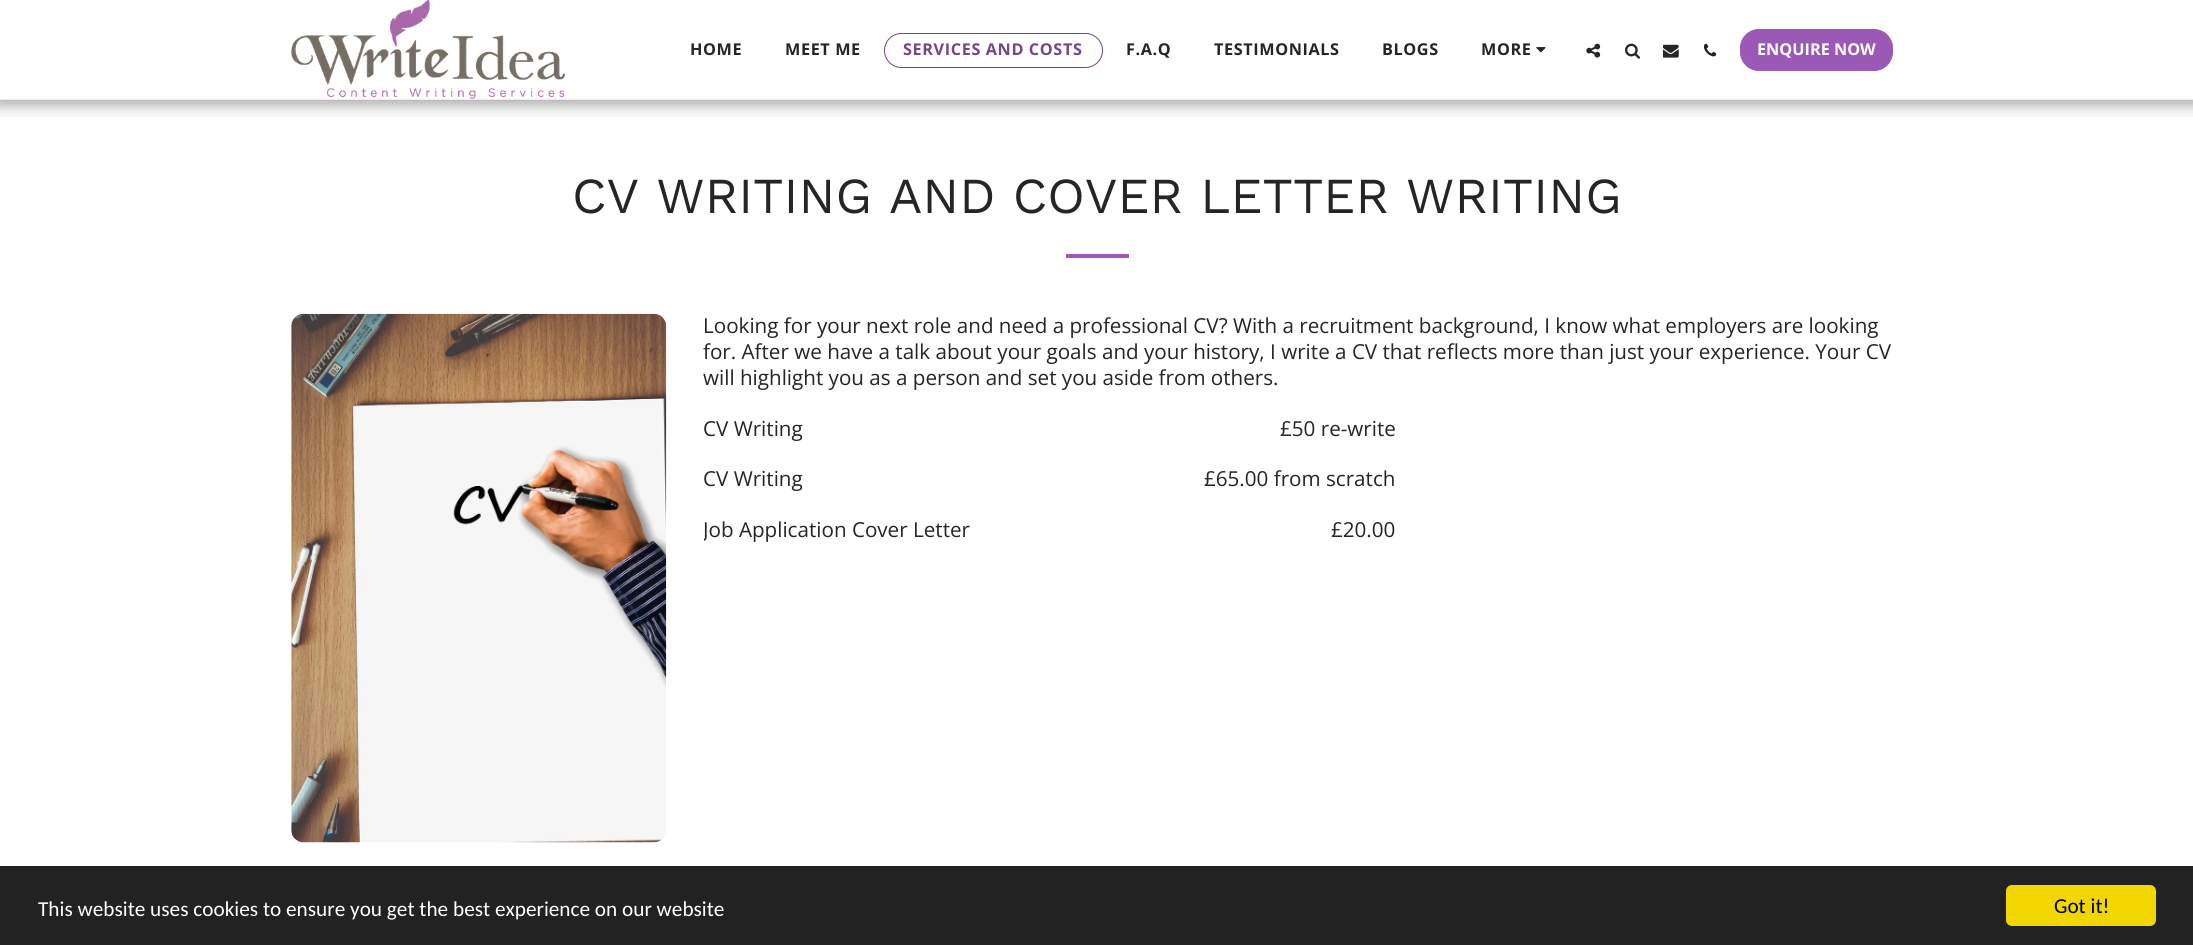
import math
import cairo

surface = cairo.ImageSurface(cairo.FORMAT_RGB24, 2193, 945)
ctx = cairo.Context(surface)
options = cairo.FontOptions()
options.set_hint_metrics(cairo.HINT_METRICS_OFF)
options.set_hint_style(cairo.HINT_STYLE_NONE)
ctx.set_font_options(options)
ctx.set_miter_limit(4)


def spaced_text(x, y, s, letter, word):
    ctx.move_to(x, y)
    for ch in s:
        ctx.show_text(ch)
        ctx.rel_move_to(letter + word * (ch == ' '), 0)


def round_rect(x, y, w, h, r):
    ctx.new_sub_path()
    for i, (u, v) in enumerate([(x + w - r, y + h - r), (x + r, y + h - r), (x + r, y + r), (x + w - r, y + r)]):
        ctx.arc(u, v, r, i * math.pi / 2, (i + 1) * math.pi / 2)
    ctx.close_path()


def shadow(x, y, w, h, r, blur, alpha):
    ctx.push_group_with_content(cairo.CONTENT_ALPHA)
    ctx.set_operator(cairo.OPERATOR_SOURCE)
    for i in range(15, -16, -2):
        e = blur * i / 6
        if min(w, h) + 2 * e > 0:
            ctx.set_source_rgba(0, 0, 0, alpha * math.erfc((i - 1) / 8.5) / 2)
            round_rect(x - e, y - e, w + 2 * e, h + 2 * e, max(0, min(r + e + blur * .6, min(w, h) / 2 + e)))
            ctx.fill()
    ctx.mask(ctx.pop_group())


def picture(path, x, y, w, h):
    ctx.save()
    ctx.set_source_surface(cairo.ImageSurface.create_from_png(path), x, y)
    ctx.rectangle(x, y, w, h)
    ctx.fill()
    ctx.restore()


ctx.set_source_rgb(1, 1, 1)
ctx.paint()
ctx.save()
ctx.rectangle(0, 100, 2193, 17)
ctx.clip()
ctx.set_source_rgb(0, 0, 0)
shadow(-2, 0, 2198, 105, 0, 7.5, 0.35)
ctx.restore()
ctx.set_source_rgb(0.922, 0.922, 0.922)
ctx.rectangle(0, 99, 2193, 1)
ctx.fill()
picture("img1.png", 291, 0, 274, 99)
ctx.select_font_face("Open Sans", cairo.FONT_SLANT_NORMAL, cairo.FONT_WEIGHT_BOLD)
ctx.set_font_size(16.25)
ctx.set_source_rgb(0.145, 0.145, 0.145)
spaced_text(690, 55, "HOME", 0.6, 0)
spaced_text(785, 55, "MEET ME", 0.6, 0)
round_rect(884.5, 33.5, 218, 34, 17)
ctx.set_source_rgb(0.463, 0.275, 0.545)
ctx.set_line_width(1)
ctx.stroke()
spaced_text(903, 55, "SERVICES AND COSTS", 0.6, 0)
ctx.set_source_rgb(0.145, 0.145, 0.145)
spaced_text(1126, 55, "F.A.Q", 0.6, 0)
spaced_text(1214, 55, "TESTIMONIALS", 0.6, 0)
spaced_text(1382, 55, "BLOGS", 0.6, 0)
spaced_text(1481, 55, "MORE", 0.6, 0)
picture("img2.png", 1536, 47, 10, 6)
picture("img3.png", 1586, 43, 15, 15)
picture("img4.png", 1625, 43, 15, 16)
picture("img5.png", 1663, 44, 16, 14)
picture("img6.png", 1704, 43, 12, 14)
ctx.set_source_rgb(0.608, 0.349, 0.714)
round_rect(1740.5, 29.5, 152, 41, 18.5)
ctx.fill_preserve()
ctx.stroke()
ctx.set_source_rgb(1, 1, 1)
ctx.move_to(1757, 55)
ctx.show_text("ENQUIRE NOW")
ctx.select_font_face("Work Sans")
ctx.set_font_size(50.35)
ctx.set_source_rgb(0.145, 0.145, 0.145)
ctx.move_to(572, 213)
ctx.show_text("CV WRITING AND COVER LETTER WRITING")
ctx.set_source_rgb(0.608, 0.349, 0.714)
ctx.rectangle(1066, 254, 63, 4)
ctx.fill()
picture("img7.png", 291, 313, 376, 530)
ctx.select_font_face("Open Sans")
ctx.set_font_size(20.62)
ctx.set_source_rgb(0.145, 0.145, 0.145)
ctx.move_to(703, 333)
ctx.show_text("Looking for your next role and need a professional CV? With a recruitment background, I know what employers are looking")
ctx.move_to(703, 359)
ctx.show_text("for. After we have a talk about your goals and your history, I write a CV that reflects more than just your experience. Your CV")
ctx.move_to(703, 385)
ctx.show_text("will highlight you as a person and set you aside from others.")
ctx.move_to(703, 436)
ctx.show_text("CV Writing")
ctx.move_to(1280, 436)
ctx.show_text("£50 re-write")
ctx.move_to(703, 486)
ctx.show_text("CV Writing")
ctx.move_to(1204, 486)
ctx.show_text("£65.00 from scratch")
ctx.save()
ctx.rectangle(704, 415, 1200, 153)
ctx.clip()
ctx.move_to(703, 537)
ctx.show_text("Job Application Cover Letter")
ctx.restore()
ctx.move_to(1331, 537)
ctx.show_text("£20.00")
ctx.set_source_rgb(0.133, 0.133, 0.133)
ctx.rectangle(0, 866, 2193, 79)
ctx.fill()
ctx.select_font_face("Carlito")
ctx.set_font_size(21.25)
ctx.set_source_rgb(1, 1, 1)
ctx.move_to(38, 916)
ctx.show_text("This website uses cookies to ensure you get the best experience on our website")
ctx.set_source_rgb(0.945, 0.839, 0)
round_rect(2006, 885, 150, 41, 6)
ctx.fill()
ctx.set_source_rgb(0, 0, 0)
ctx.move_to(2054, 913)
ctx.show_text("Got it!")
surface.write_to_png("page.png")
